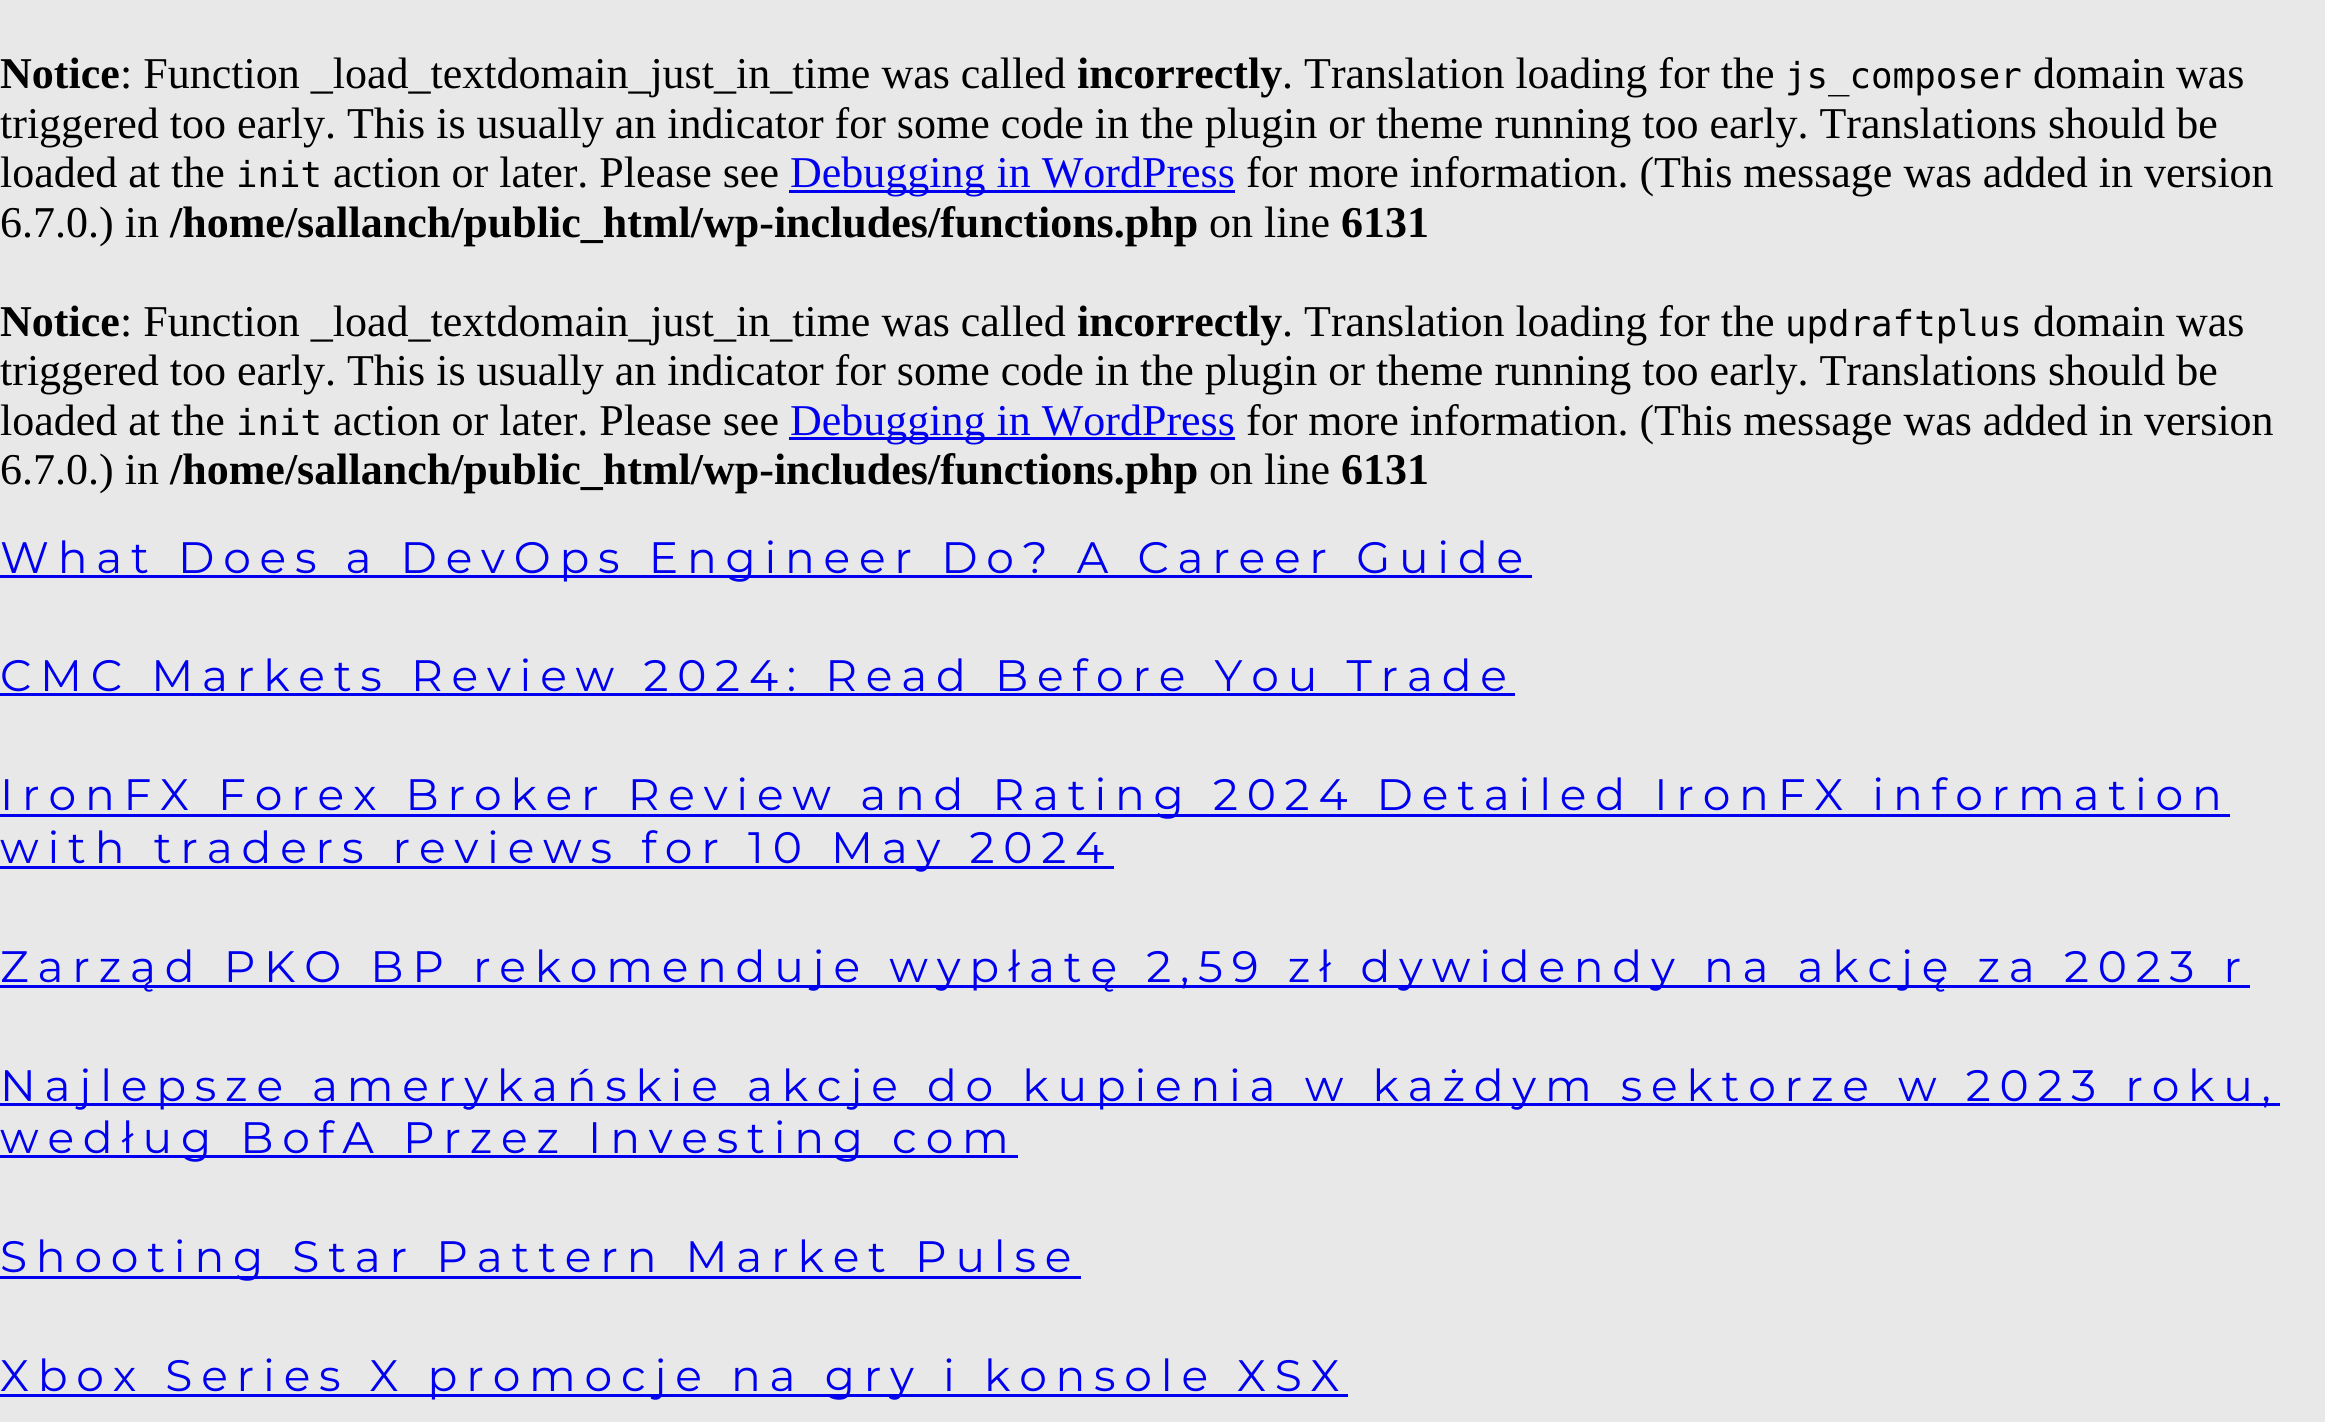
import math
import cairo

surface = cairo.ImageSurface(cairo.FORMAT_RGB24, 2325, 1422)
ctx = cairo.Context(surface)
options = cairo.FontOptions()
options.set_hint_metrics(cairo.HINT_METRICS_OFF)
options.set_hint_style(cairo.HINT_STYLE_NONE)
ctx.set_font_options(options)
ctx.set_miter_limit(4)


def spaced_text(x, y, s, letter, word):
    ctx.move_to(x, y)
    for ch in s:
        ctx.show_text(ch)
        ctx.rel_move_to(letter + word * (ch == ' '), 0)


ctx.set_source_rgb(0.91, 0.91, 0.91)
ctx.paint()
ctx.select_font_face("Liberation Serif", cairo.FONT_SLANT_NORMAL, cairo.FONT_WEIGHT_BOLD)
ctx.set_font_size(44)
ctx.set_source_rgb(0, 0, 0)
ctx.move_to(0, 88)
ctx.show_text("Notice")
ctx.select_font_face("Liberation Serif")
ctx.move_to(120, 88)
ctx.show_text(": Function _load_textdomain_just_in_time was called")
ctx.select_font_face("Liberation Serif", cairo.FONT_SLANT_NORMAL, cairo.FONT_WEIGHT_BOLD)
ctx.move_to(1077, 88)
ctx.show_text("incorrectly")
ctx.select_font_face("Liberation Serif")
ctx.move_to(1282, 88)
ctx.show_text(". Translation loading for the")
ctx.select_font_face("DejaVu Sans Mono")
ctx.set_font_size(35.75)
ctx.move_to(1785, 88)
ctx.show_text("js_composer")
ctx.select_font_face("Liberation Serif")
ctx.set_font_size(44)
ctx.move_to(2033, 88)
ctx.show_text("domain was")
ctx.move_to(0, 138)
ctx.show_text("triggered too early. This is usually an indicator for some code in the plugin or theme running too early. Translations should be")
ctx.move_to(0, 187)
ctx.show_text("loaded at the")
ctx.select_font_face("DejaVu Sans Mono")
ctx.set_font_size(35.75)
ctx.move_to(236, 187)
ctx.show_text("init")
ctx.select_font_face("Liberation Serif")
ctx.set_font_size(44)
ctx.move_to(333, 187)
ctx.show_text("action or later. Please see")
ctx.set_source_rgb(0, 0, 0.933)
ctx.rectangle(789, 190, 446, 3)
ctx.fill()
ctx.move_to(790, 187)
ctx.show_text("Debugging in WordPress")
ctx.set_source_rgb(0, 0, 0)
ctx.move_to(1246, 187)
ctx.show_text("for more information. (This message was added in version")
ctx.move_to(0, 237)
ctx.show_text("6.7.0.) in")
ctx.select_font_face("Liberation Serif", cairo.FONT_SLANT_NORMAL, cairo.FONT_WEIGHT_BOLD)
ctx.move_to(170, 237)
ctx.show_text("/home/sallanch/public_html/wp-includes/functions.php")
ctx.select_font_face("Liberation Serif")
ctx.move_to(1209, 237)
ctx.show_text("on line")
ctx.select_font_face("Liberation Serif", cairo.FONT_SLANT_NORMAL, cairo.FONT_WEIGHT_BOLD)
ctx.move_to(1341, 237)
ctx.show_text("6131")
ctx.move_to(0, 336)
ctx.show_text("Notice")
ctx.select_font_face("Liberation Serif")
ctx.move_to(120, 336)
ctx.show_text(": Function _load_textdomain_just_in_time was called")
ctx.select_font_face("Liberation Serif", cairo.FONT_SLANT_NORMAL, cairo.FONT_WEIGHT_BOLD)
ctx.move_to(1077, 336)
ctx.show_text("incorrectly")
ctx.select_font_face("Liberation Serif")
ctx.move_to(1282, 336)
ctx.show_text(". Translation loading for the")
ctx.select_font_face("DejaVu Sans Mono")
ctx.set_font_size(35.75)
ctx.move_to(1785, 336)
ctx.show_text("updraftplus")
ctx.select_font_face("Liberation Serif")
ctx.set_font_size(44)
ctx.move_to(2033, 336)
ctx.show_text("domain was")
ctx.move_to(0, 385)
ctx.show_text("triggered too early. This is usually an indicator for some code in the plugin or theme running too early. Translations should be")
ctx.move_to(0, 435)
ctx.show_text("loaded at the")
ctx.select_font_face("DejaVu Sans Mono")
ctx.set_font_size(35.75)
ctx.move_to(236, 435)
ctx.show_text("init")
ctx.select_font_face("Liberation Serif")
ctx.set_font_size(44)
ctx.move_to(333, 435)
ctx.show_text("action or later. Please see")
ctx.set_source_rgb(0, 0, 0.933)
ctx.rectangle(789, 437, 446, 3)
ctx.fill()
ctx.move_to(790, 435)
ctx.show_text("Debugging in WordPress")
ctx.set_source_rgb(0, 0, 0)
ctx.move_to(1246, 435)
ctx.show_text("for more information. (This message was added in version")
ctx.move_to(0, 484)
ctx.show_text("6.7.0.) in")
ctx.select_font_face("Liberation Serif", cairo.FONT_SLANT_NORMAL, cairo.FONT_WEIGHT_BOLD)
ctx.move_to(170, 484)
ctx.show_text("/home/sallanch/public_html/wp-includes/functions.php")
ctx.select_font_face("Liberation Serif")
ctx.move_to(1209, 484)
ctx.show_text("on line")
ctx.select_font_face("Liberation Serif", cairo.FONT_SLANT_NORMAL, cairo.FONT_WEIGHT_BOLD)
ctx.move_to(1341, 484)
ctx.show_text("6131")
ctx.set_source_rgb(0, 0, 0.933)
ctx.rectangle(0, 575, 1532, 3)
ctx.fill()
ctx.select_font_face("Montserrat")
spaced_text(0, 573, "What Does a DevOps Engineer Do? A Career Guide", 8.8, 0)
spaced_text(0, 691, "CMC Markets Review 2024: Read Before You Trade", 8.8, 0)
ctx.rectangle(0, 693, 1515, 3)
ctx.fill()
ctx.rectangle(0, 814, 2230, 3)
ctx.fill()
spaced_text(0, 810, "IronFX Forex Broker Review and Rating 2024 Detailed IronFX information", 8.8, 0)
ctx.rectangle(0, 866, 1114, 3)
ctx.fill()
spaced_text(0, 863, "with traders reviews for 10 May 2024", 8.8, 0)
ctx.rectangle(0, 985, 2250, 3)
ctx.fill()
spaced_text(0, 982, "Zarząd PKO BP rekomenduje wypłatę 2,59 zł dywidendy na akcję za 2023 r", 8.8, 0)
ctx.rectangle(0, 1103, 2280, 3)
ctx.fill()
spaced_text(0, 1101, "Najlepsze amerykańskie akcje do kupienia w każdym sektorze w 2023 roku,", 8.8, 0)
ctx.rectangle(0, 1155, 1018, 3)
ctx.fill()
spaced_text(0, 1153, "według BofA Przez Investing com", 8.8, 0)
ctx.rectangle(0, 1276, 1081, 3)
ctx.fill()
spaced_text(0, 1272, "Shooting Star Pattern Market Pulse", 8.8, 0)
ctx.rectangle(0, 1394, 1348, 3)
ctx.fill()
spaced_text(0, 1391, "Xbox Series X promocje na gry i konsole XSX", 8.8, 0)
surface.write_to_png("page.png")
